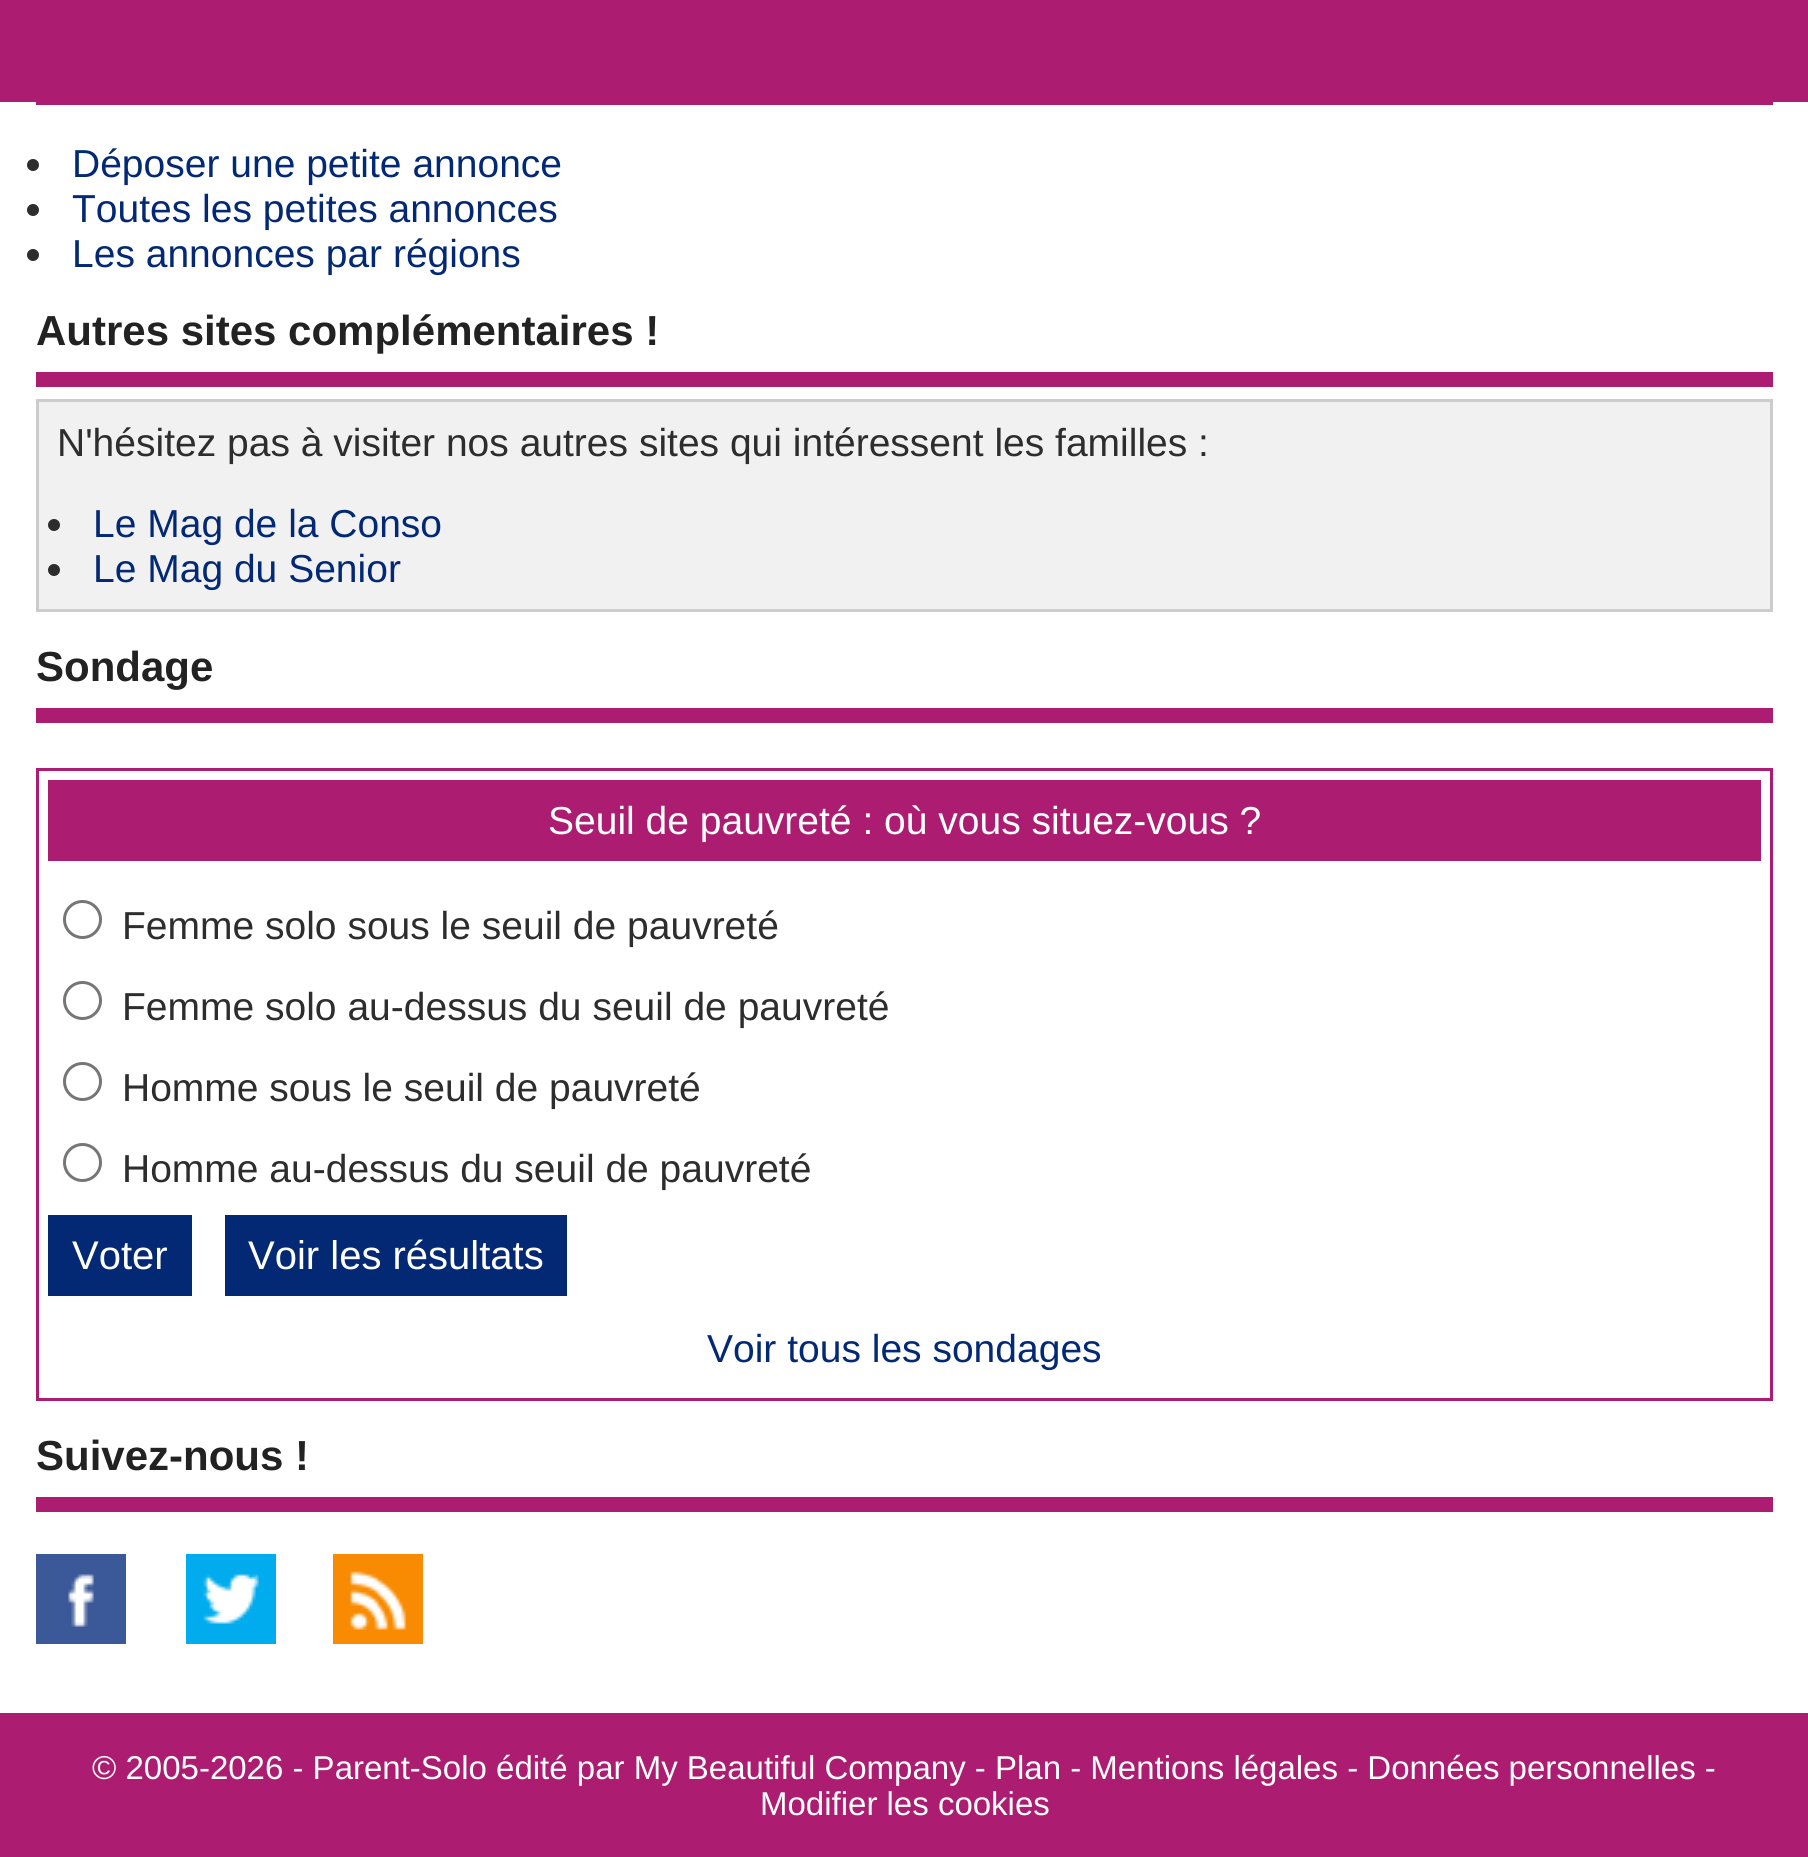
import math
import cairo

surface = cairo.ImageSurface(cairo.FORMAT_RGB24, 1808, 1857)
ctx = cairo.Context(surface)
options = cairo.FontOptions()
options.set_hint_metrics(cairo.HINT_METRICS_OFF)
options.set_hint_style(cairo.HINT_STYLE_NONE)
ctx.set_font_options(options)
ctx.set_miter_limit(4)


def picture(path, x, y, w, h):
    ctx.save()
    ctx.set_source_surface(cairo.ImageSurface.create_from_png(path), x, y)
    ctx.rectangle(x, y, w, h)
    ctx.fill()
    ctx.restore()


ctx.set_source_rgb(1, 1, 1)
ctx.paint()
ctx.set_source_rgb(0.675, 0.114, 0.447)
ctx.rectangle(0, 0, 1808, 102)
ctx.fill()
ctx.rectangle(36, 102, 1737, 3)
ctx.fill()
ctx.set_source_rgb(0.176, 0.176, 0.176)
ctx.arc(33, 165, 6, 0, 2 * math.pi)
ctx.fill()
ctx.select_font_face("Liberation Sans")
ctx.set_font_size(39)
ctx.set_source_rgb(0.012, 0.161, 0.459)
ctx.move_to(72, 177)
ctx.show_text("Déposer une petite annonce")
ctx.set_source_rgb(0.176, 0.176, 0.176)
ctx.new_path()
ctx.arc(33, 210, 6, 0, 2 * math.pi)
ctx.fill()
ctx.set_source_rgb(0.012, 0.161, 0.459)
ctx.move_to(72, 222)
ctx.show_text("Toutes les petites annonces")
ctx.set_source_rgb(0.176, 0.176, 0.176)
ctx.new_path()
ctx.arc(33, 255, 6, 0, 2 * math.pi)
ctx.fill()
ctx.set_source_rgb(0.012, 0.161, 0.459)
ctx.move_to(72, 267)
ctx.show_text("Les annonces par régions")
ctx.set_source_rgb(0.675, 0.114, 0.447)
ctx.rectangle(36, 372, 1737, 15)
ctx.fill()
ctx.select_font_face("Liberation Sans", cairo.FONT_SLANT_NORMAL, cairo.FONT_WEIGHT_BOLD)
ctx.set_font_size(42)
ctx.set_source_rgb(0.133, 0.133, 0.133)
ctx.move_to(36, 345)
ctx.show_text("Autres sites complémentaires !")
ctx.set_source_rgb(0.945, 0.945, 0.945)
ctx.rectangle(37.5, 400.5, 1734, 210)
ctx.fill_preserve()
ctx.set_source_rgb(0.8, 0.8, 0.8)
ctx.set_line_width(3)
ctx.stroke()
ctx.select_font_face("Liberation Sans")
ctx.set_font_size(39)
ctx.set_source_rgb(0.176, 0.176, 0.176)
ctx.move_to(57, 456)
ctx.show_text("N'hésitez pas à visiter nos autres sites qui intéressent les familles :")
ctx.new_path()
ctx.arc(54, 525, 6, 0, 2 * math.pi)
ctx.fill()
ctx.set_source_rgb(0.012, 0.161, 0.459)
ctx.move_to(93, 537)
ctx.show_text("Le Mag de la Conso")
ctx.set_source_rgb(0.176, 0.176, 0.176)
ctx.new_path()
ctx.arc(54, 570, 6, 0, 2 * math.pi)
ctx.fill()
ctx.set_source_rgb(0.012, 0.161, 0.459)
ctx.move_to(93, 582)
ctx.show_text("Le Mag du Senior")
ctx.set_source_rgb(0.675, 0.114, 0.447)
ctx.rectangle(36, 708, 1737, 15)
ctx.fill()
ctx.select_font_face("Liberation Sans", cairo.FONT_SLANT_NORMAL, cairo.FONT_WEIGHT_BOLD)
ctx.set_font_size(42)
ctx.set_source_rgb(0.133, 0.133, 0.133)
ctx.move_to(36, 681)
ctx.show_text("Sondage")
ctx.rectangle(37.5, 769.5, 1734, 630)
ctx.set_source_rgb(0.675, 0.114, 0.447)
ctx.stroke()
ctx.rectangle(48, 780, 1713, 81)
ctx.fill()
ctx.select_font_face("Liberation Sans")
ctx.set_font_size(39)
ctx.set_source_rgb(1, 1, 1)
ctx.move_to(548, 834)
ctx.show_text("Seuil de pauvreté : où vous situez-vous ?")
ctx.new_path()
ctx.arc(82.5, 919.5, 18, 0, 2 * math.pi)
ctx.set_source_rgb(0.463, 0.463, 0.463)
ctx.stroke()
ctx.set_source_rgb(0.176, 0.176, 0.176)
ctx.move_to(122, 939)
ctx.show_text("Femme solo sous le seuil de pauvreté")
ctx.new_path()
ctx.arc(82.5, 1000.5, 18, 0, 2 * math.pi)
ctx.set_source_rgb(0.463, 0.463, 0.463)
ctx.stroke()
ctx.set_source_rgb(0.176, 0.176, 0.176)
ctx.move_to(122, 1020)
ctx.show_text("Femme solo au-dessus du seuil de pauvreté")
ctx.new_path()
ctx.arc(82.5, 1081.5, 18, 0, 2 * math.pi)
ctx.set_source_rgb(0.463, 0.463, 0.463)
ctx.stroke()
ctx.set_source_rgb(0.176, 0.176, 0.176)
ctx.move_to(122, 1101)
ctx.show_text("Homme sous le seuil de pauvreté")
ctx.new_path()
ctx.arc(82.5, 1162.5, 18, 0, 2 * math.pi)
ctx.set_source_rgb(0.463, 0.463, 0.463)
ctx.stroke()
ctx.set_source_rgb(0.176, 0.176, 0.176)
ctx.move_to(122, 1182)
ctx.show_text("Homme au-dessus du seuil de pauvreté")
ctx.set_source_rgb(0.012, 0.161, 0.459)
ctx.rectangle(48, 1215, 144, 81)
ctx.fill()
ctx.set_font_size(40)
ctx.set_source_rgb(1, 1, 1)
ctx.move_to(72, 1269)
ctx.show_text("Voter")
ctx.set_source_rgb(0.012, 0.161, 0.459)
ctx.rectangle(225, 1215, 342, 81)
ctx.fill()
ctx.set_source_rgb(1, 1, 1)
ctx.move_to(248, 1269)
ctx.show_text("Voir les résultats")
ctx.set_font_size(39)
ctx.set_source_rgb(0.012, 0.161, 0.459)
ctx.move_to(707, 1362)
ctx.show_text("Voir tous les sondages")
ctx.set_source_rgb(0.675, 0.114, 0.447)
ctx.rectangle(36, 1497, 1737, 15)
ctx.fill()
ctx.select_font_face("Liberation Sans", cairo.FONT_SLANT_NORMAL, cairo.FONT_WEIGHT_BOLD)
ctx.set_font_size(42)
ctx.set_source_rgb(0.133, 0.133, 0.133)
ctx.move_to(36, 1470)
ctx.show_text("Suivez-nous !")
picture("img1.png", 36, 1554, 90, 90)
picture("img2.png", 186, 1554, 90, 90)
picture("img3.png", 333, 1554, 90, 90)
ctx.set_source_rgb(0.675, 0.114, 0.447)
ctx.rectangle(0, 1713, 1808, 144)
ctx.fill()
ctx.select_font_face("Liberation Sans")
ctx.set_font_size(33)
ctx.set_source_rgb(1, 1, 1)
ctx.move_to(92, 1779)
ctx.show_text("© 2005-2026 - Parent-Solo édité par My Beautiful Company - Plan - Mentions légales - Données personnelles -")
ctx.move_to(760, 1815)
ctx.show_text("Modifier les cookies")
surface.write_to_png("page.png")
